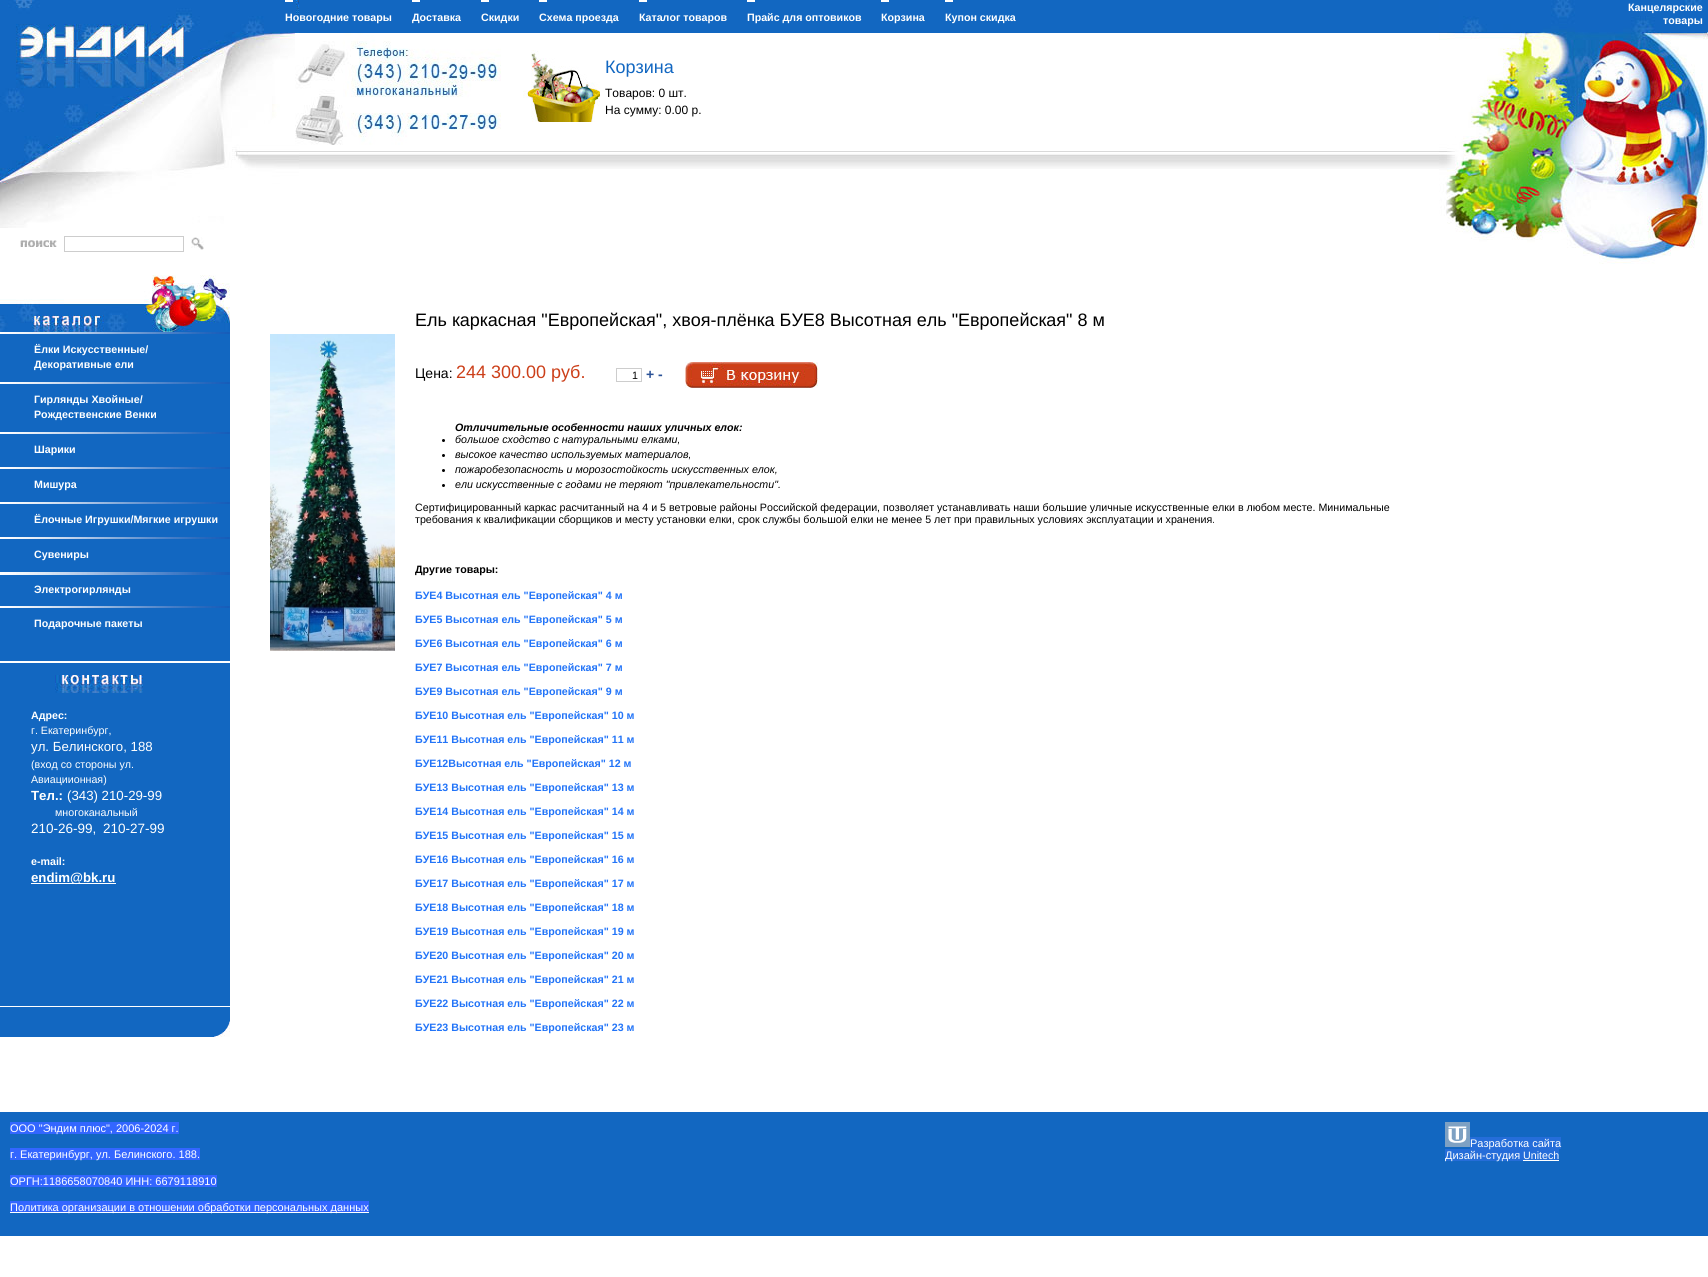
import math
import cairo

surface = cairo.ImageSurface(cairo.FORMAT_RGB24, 1708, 1277)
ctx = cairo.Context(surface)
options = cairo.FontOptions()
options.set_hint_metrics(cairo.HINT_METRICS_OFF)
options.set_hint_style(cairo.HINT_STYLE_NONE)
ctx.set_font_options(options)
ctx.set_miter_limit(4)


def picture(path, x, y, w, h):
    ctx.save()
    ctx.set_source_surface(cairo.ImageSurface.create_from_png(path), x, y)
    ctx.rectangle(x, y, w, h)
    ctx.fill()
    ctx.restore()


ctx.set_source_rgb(1, 1, 1)
ctx.paint()
picture("img1.png", 299, 0, 1140, 169)
picture("img2.png", 0, 0, 299, 228)
picture("img3.png", 1439, 0, 269, 264)
ctx.set_source_rgb(1, 1, 1)
ctx.rectangle(285, 0, 8, 2)
ctx.fill()
ctx.select_font_face("Liberation Sans", cairo.FONT_SLANT_NORMAL, cairo.FONT_WEIGHT_BOLD)
ctx.set_font_size(10.67)
ctx.move_to(285, 21)
ctx.show_text("Новогодние товары")
ctx.rectangle(412, 0, 8, 2)
ctx.fill()
ctx.move_to(412, 21)
ctx.show_text("Доставка")
ctx.rectangle(481, 0, 8, 2)
ctx.fill()
ctx.move_to(481, 21)
ctx.show_text("Cкидки")
ctx.rectangle(539, 0, 8, 2)
ctx.fill()
ctx.move_to(539, 21)
ctx.show_text("Cхема проезда")
ctx.rectangle(639, 0, 8, 2)
ctx.fill()
ctx.move_to(639, 21)
ctx.show_text("Каталог товаров")
ctx.rectangle(747, 0, 8, 2)
ctx.fill()
ctx.move_to(747, 21)
ctx.show_text("Прайс для оптовиков")
ctx.rectangle(881, 0, 8, 2)
ctx.fill()
ctx.move_to(881, 21)
ctx.show_text("Корзина")
ctx.rectangle(945, 0, 8, 2)
ctx.fill()
ctx.move_to(945, 21)
ctx.show_text("Купон скидка")
ctx.move_to(1628, 11)
ctx.show_text("Канцелярские")
ctx.move_to(1663, 24)
ctx.show_text("товары")
picture("img4.png", 295, 33, 206, 112)
picture("img5.png", 523, 50, 77, 72)
ctx.select_font_face("Liberation Sans")
ctx.set_font_size(18)
ctx.set_source_rgb(0.071, 0.404, 0.757)
ctx.move_to(605, 73)
ctx.show_text("Корзина")
ctx.set_font_size(12)
ctx.set_source_rgb(0, 0, 0)
ctx.move_to(605, 97)
ctx.show_text("Товаров: 0 шт.")
ctx.move_to(605, 114)
ctx.show_text("На сумму: 0.00 р.")
picture("img6.png", 20, 240, 37, 7)
ctx.rectangle(64.5, 236.5, 119, 15)
ctx.set_source_rgb(0.804, 0.804, 0.804)
ctx.set_line_width(1)
ctx.stroke()
picture("img7.png", 191, 237, 13, 13)
picture("img8.png", 0, 275, 230, 57)
ctx.set_source_rgb(0.071, 0.404, 0.757)
ctx.rectangle(0, 334, 230, 703)
ctx.fill()
picture("img9.png", 214, 1021, 16, 16)
picture("img10.png", 0, 332, 230, 2)
ctx.select_font_face("Liberation Sans", cairo.FONT_SLANT_NORMAL, cairo.FONT_WEIGHT_BOLD)
ctx.set_font_size(10.67)
ctx.set_source_rgb(1, 1, 1)
ctx.move_to(34, 353)
ctx.show_text("Ёлки Искусственные/")
ctx.move_to(34, 368)
ctx.show_text("Декоративные ели")
picture("img10.png", 0, 382, 230, 2)
ctx.move_to(34, 403)
ctx.show_text("Гирлянды Хвойные/")
ctx.move_to(34, 418)
ctx.show_text("Рождественские Венки")
picture("img10.png", 0, 432, 230, 2)
ctx.move_to(34, 453)
ctx.show_text("Шарики")
picture("img10.png", 0, 467, 230, 2)
ctx.move_to(34, 488)
ctx.show_text("Мишура")
picture("img10.png", 0, 502, 230, 2)
ctx.move_to(34, 523)
ctx.show_text("Ёлочные Игрушки/Мягкие игрушки")
picture("img10.png", 0, 537, 230, 2)
ctx.move_to(34, 558)
ctx.show_text("Сувениры")
picture("img11.png", 0, 572, 230, 3)
ctx.move_to(34, 593)
ctx.show_text("Электрогирлянды")
picture("img10.png", 0, 606, 230, 2)
ctx.move_to(34, 627)
ctx.show_text("Подарочные пакеты")
picture("img12.png", 55, 675, 88, 18)
ctx.rectangle(0, 661, 230, 2)
ctx.fill()
ctx.rectangle(0, 1006, 230, 1)
ctx.fill()
ctx.move_to(31, 719)
ctx.show_text("Адрес:")
ctx.select_font_face("Liberation Sans")
ctx.move_to(31, 734)
ctx.show_text("г. Екатеринбург,")
ctx.set_font_size(13.25)
ctx.move_to(31, 751)
ctx.show_text("ул. Белинского, 188")
ctx.set_font_size(10.67)
ctx.move_to(31, 768)
ctx.show_text("(вход со стороны ул.")
ctx.move_to(31, 783)
ctx.show_text("Авиациионная)")
ctx.select_font_face("Liberation Sans", cairo.FONT_SLANT_NORMAL, cairo.FONT_WEIGHT_BOLD)
ctx.set_font_size(13.25)
ctx.move_to(31, 800)
ctx.show_text("Тел.:")
ctx.select_font_face("Liberation Sans")
ctx.move_to(67, 800)
ctx.show_text("(343) 210-29-99")
ctx.set_font_size(10.67)
ctx.move_to(55, 816)
ctx.show_text("многоканальный")
ctx.set_font_size(13.5)
ctx.move_to(31, 833)
ctx.show_text("210-26-99,")
ctx.move_to(103, 833)
ctx.show_text("210-27-99")
ctx.select_font_face("Liberation Sans", cairo.FONT_SLANT_NORMAL, cairo.FONT_WEIGHT_BOLD)
ctx.set_font_size(10.67)
ctx.move_to(31, 865)
ctx.show_text("e-mail:")
ctx.rectangle(31, 883, 85, 1)
ctx.fill()
ctx.set_font_size(13.25)
ctx.move_to(31, 882)
ctx.show_text("endim@bk.ru")
picture("img13.png", 270, 334, 125, 317)
ctx.select_font_face("Liberation Sans")
ctx.set_font_size(18)
ctx.set_source_rgb(0, 0, 0)
ctx.move_to(415, 326)
ctx.show_text("Ель каркасная \"Европейская\", хвоя-плёнка БУЕ8 Высотная ель \"Европейская\" 8 м")
ctx.set_font_size(14)
ctx.move_to(415, 378)
ctx.show_text("Цена:")
ctx.set_font_size(18)
ctx.set_source_rgb(0.8, 0.247, 0.098)
ctx.move_to(456, 378)
ctx.show_text("244 300.00 руб.")
ctx.rectangle(616.5, 368.5, 25, 13)
ctx.set_source_rgb(0.804, 0.804, 0.804)
ctx.stroke()
ctx.set_font_size(10.67)
ctx.set_source_rgb(0, 0, 0)
ctx.move_to(632, 379)
ctx.show_text("1")
ctx.select_font_face("Liberation Sans", cairo.FONT_SLANT_NORMAL, cairo.FONT_WEIGHT_BOLD)
ctx.set_font_size(14)
ctx.set_source_rgb(0.169, 0.322, 0.592)
ctx.move_to(646, 379)
ctx.show_text("+ -")
picture("img14.png", 685, 362, 133, 26)
ctx.select_font_face("Liberation Sans", cairo.FONT_SLANT_ITALIC, cairo.FONT_WEIGHT_BOLD)
ctx.set_font_size(10.67)
ctx.set_source_rgb(0, 0, 0)
ctx.move_to(455, 431)
ctx.show_text("Отличительные особенности наших уличных елок:")
ctx.new_path()
ctx.arc(443.5, 440.5, 1.5, 0, 2 * math.pi)
ctx.fill()
ctx.select_font_face("Liberation Sans", cairo.FONT_SLANT_ITALIC)
ctx.move_to(455, 443)
ctx.show_text("большое сходство с натуральными елками,")
ctx.new_path()
ctx.arc(443.5, 455.5, 1.5, 0, 2 * math.pi)
ctx.fill()
ctx.move_to(455, 458)
ctx.show_text("высокое качество используемых материалов,")
ctx.new_path()
ctx.arc(443.5, 470.5, 1.5, 0, 2 * math.pi)
ctx.fill()
ctx.move_to(455, 473)
ctx.show_text("пожаробезопасность и морозостойкость искусственных елок,")
ctx.new_path()
ctx.arc(443.5, 485.5, 1.5, 0, 2 * math.pi)
ctx.fill()
ctx.move_to(455, 488)
ctx.show_text("ели искусственные с годами не теряют \"привлекательности\".")
ctx.select_font_face("Liberation Sans")
ctx.move_to(415, 511)
ctx.show_text("Сертифицированный каркас расчитанный на 4 и 5 ветровые районы Российской федерации, позволяет устанавливать наши большие уличные искусственные елки в любом месте. Минимальные")
ctx.move_to(415, 523)
ctx.show_text("требования к квалификации сборщиков и месту установки елки, срок службы большой елки не менее 5 лет при правильных условиях эксплуатации и хранения.")
ctx.select_font_face("Liberation Sans", cairo.FONT_SLANT_NORMAL, cairo.FONT_WEIGHT_BOLD)
ctx.move_to(415, 573)
ctx.show_text("Другие товары:")
ctx.set_source_rgb(0.133, 0.455, 0.969)
ctx.move_to(415, 599)
ctx.show_text("БУЕ4 Высотная ель \"Европейская\" 4 м")
ctx.move_to(415, 623)
ctx.show_text("БУЕ5 Высотная ель \"Европейская\" 5 м")
ctx.move_to(415, 647)
ctx.show_text("БУЕ6 Высотная ель \"Европейская\" 6 м")
ctx.move_to(415, 671)
ctx.show_text("БУЕ7 Высотная ель \"Европейская\" 7 м")
ctx.move_to(415, 695)
ctx.show_text("БУЕ9 Высотная ель \"Европейская\" 9 м")
ctx.move_to(415, 719)
ctx.show_text("БУЕ10 Высотная ель \"Европейская\" 10 м")
ctx.move_to(415, 743)
ctx.show_text("БУЕ11 Высотная ель \"Европейская\" 11 м")
ctx.move_to(415, 767)
ctx.show_text("БУЕ12Высотная ель \"Европейская\" 12 м")
ctx.move_to(415, 791)
ctx.show_text("БУЕ13 Высотная ель \"Европейская\" 13 м")
ctx.move_to(415, 815)
ctx.show_text("БУЕ14 Высотная ель \"Европейская\" 14 м")
ctx.move_to(415, 839)
ctx.show_text("БУЕ15 Высотная ель \"Европейская\" 15 м")
ctx.move_to(415, 863)
ctx.show_text("БУЕ16 Высотная ель \"Европейская\" 16 м")
ctx.move_to(415, 887)
ctx.show_text("БУЕ17 Высотная ель \"Европейская\" 17 м")
ctx.move_to(415, 911)
ctx.show_text("БУЕ18 Высотная ель \"Европейская\" 18 м")
ctx.move_to(415, 935)
ctx.show_text("БУЕ19 Высотная ель \"Европейская\" 19 м")
ctx.move_to(415, 959)
ctx.show_text("БУЕ20 Высотная ель \"Европейская\" 20 м")
ctx.move_to(415, 983)
ctx.show_text("БУЕ21 Высотная ель \"Европейская\" 21 м")
ctx.move_to(415, 1007)
ctx.show_text("БУЕ22 Высотная ель \"Европейская\" 22 м")
ctx.move_to(415, 1031)
ctx.show_text("БУЕ23 Высотная ель \"Европейская\" 23 м")
ctx.set_source_rgb(0.071, 0.404, 0.757)
ctx.rectangle(0, 1112, 1708, 124)
ctx.fill()
ctx.set_source_rgb(0.2, 0.4, 1)
ctx.rectangle(10, 1122, 169, 12)
ctx.fill()
ctx.select_font_face("Liberation Sans")
ctx.set_font_size(11)
ctx.set_source_rgb(1, 1, 1)
ctx.move_to(10, 1132)
ctx.show_text("ООО \"Эндим плюс\", 2006-2024 г.")
ctx.set_source_rgb(0.2, 0.4, 1)
ctx.rectangle(10, 1148, 190, 12)
ctx.fill()
ctx.set_source_rgb(1, 1, 1)
ctx.move_to(10, 1158)
ctx.show_text("г. Екатеринбург, ул. Белинского. 188.")
ctx.set_source_rgb(0.2, 0.4, 1)
ctx.rectangle(10, 1175, 207, 12)
ctx.fill()
ctx.set_source_rgb(1, 1, 1)
ctx.move_to(10, 1185)
ctx.show_text("ОРГН:1186658070840 ИНН: 6679118910")
ctx.set_source_rgb(0.2, 0.4, 1)
ctx.rectangle(10, 1201, 359, 11)
ctx.fill()
ctx.set_source_rgb(1, 1, 1)
ctx.rectangle(10, 1212, 359, 1)
ctx.fill()
ctx.move_to(10, 1211)
ctx.show_text("Политика организации в отношении обработки персональных данных")
picture("img15.png", 1445, 1122, 25, 25)
ctx.set_source_rgb(0.145, 0.427, 0.851)
ctx.rectangle(1470, 1137, 91, 12)
ctx.fill()
ctx.rectangle(1445, 1149, 78, 12)
ctx.fill()
ctx.set_source_rgb(1, 1, 1)
ctx.move_to(1470, 1147)
ctx.show_text("Разработка сайта")
ctx.move_to(1445, 1159)
ctx.show_text("Дизайн-студия")
ctx.set_source_rgb(0.145, 0.427, 0.851)
ctx.rectangle(1523, 1149, 36, 11)
ctx.fill()
ctx.set_font_size(10.67)
ctx.set_source_rgb(1, 1, 1)
ctx.move_to(1523, 1159)
ctx.show_text("Unitech")
ctx.rectangle(1523, 1160, 36, 1)
ctx.fill()
surface.write_to_png("page.png")
